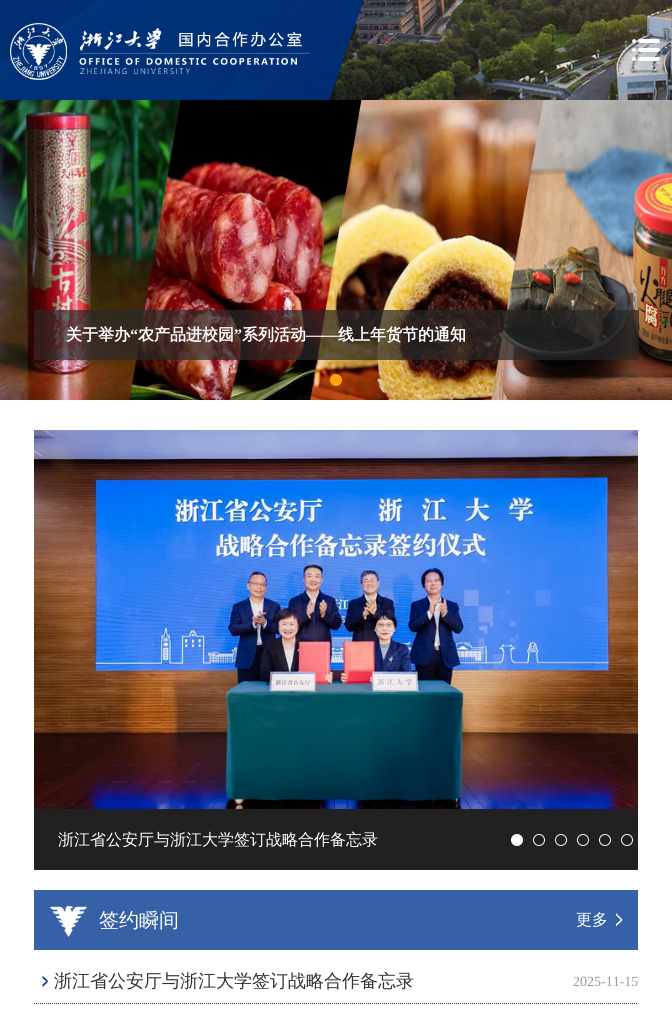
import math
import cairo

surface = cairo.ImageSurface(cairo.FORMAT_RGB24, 672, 1019)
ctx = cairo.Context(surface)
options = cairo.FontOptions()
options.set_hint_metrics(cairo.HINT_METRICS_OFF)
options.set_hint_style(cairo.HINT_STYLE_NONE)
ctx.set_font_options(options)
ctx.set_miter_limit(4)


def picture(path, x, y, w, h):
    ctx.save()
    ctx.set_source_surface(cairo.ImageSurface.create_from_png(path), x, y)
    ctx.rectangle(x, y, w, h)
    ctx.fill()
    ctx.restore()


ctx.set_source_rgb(1, 1, 1)
ctx.paint()
picture("img1.png", 0, 0, 672, 100)
picture("img2.png", 10, 23, 300, 57)
picture("img3.png", 632, 39, 28, 22)
picture("img4.png", 0, 100, 672, 300)
ctx.set_source_rgba(0.161, 0.161, 0.161, 0.7)
ctx.rectangle(34, 310, 605, 50)
ctx.fill()
ctx.select_font_face("WenQuanYi Zen Hei", cairo.FONT_SLANT_NORMAL, cairo.FONT_WEIGHT_BOLD)
ctx.set_font_size(16)
ctx.set_source_rgb(1, 1, 1)
ctx.move_to(66, 340)
ctx.show_text("关于举办")
ctx.select_font_face("Liberation Serif", cairo.FONT_SLANT_NORMAL, cairo.FONT_WEIGHT_BOLD)
ctx.move_to(130, 340)
ctx.show_text("“")
ctx.select_font_face("WenQuanYi Zen Hei", cairo.FONT_SLANT_NORMAL, cairo.FONT_WEIGHT_BOLD)
ctx.move_to(138, 340)
ctx.show_text("农产品进校园")
ctx.select_font_face("Liberation Serif", cairo.FONT_SLANT_NORMAL, cairo.FONT_WEIGHT_BOLD)
ctx.move_to(234, 340)
ctx.show_text("”")
ctx.select_font_face("WenQuanYi Zen Hei", cairo.FONT_SLANT_NORMAL, cairo.FONT_WEIGHT_BOLD)
ctx.move_to(242, 340)
ctx.show_text("系列活动")
ctx.select_font_face("Liberation Serif", cairo.FONT_SLANT_NORMAL, cairo.FONT_WEIGHT_BOLD)
ctx.move_to(306, 340)
ctx.show_text("——")
ctx.select_font_face("WenQuanYi Zen Hei", cairo.FONT_SLANT_NORMAL, cairo.FONT_WEIGHT_BOLD)
ctx.move_to(338, 340)
ctx.show_text("线上年货节的通知")
ctx.set_source_rgb(0.988, 0.639, 0.067)
ctx.new_path()
ctx.arc(336, 380, 6, 0, 2 * math.pi)
ctx.fill()
picture("img5.png", 34, 430, 604, 379)
ctx.set_source_rgb(0.129, 0.129, 0.129)
ctx.rectangle(34, 809, 604, 61)
ctx.fill()
ctx.select_font_face("WenQuanYi Zen Hei Medium")
ctx.set_source_rgb(1, 1, 1)
ctx.move_to(58, 845)
ctx.show_text("浙江省公安厅与浙江大学签订战略合作备忘录")
ctx.new_path()
ctx.arc(517, 840, 5.5, 0, 2 * math.pi)
ctx.fill_preserve()
ctx.set_line_width(1)
ctx.stroke()
ctx.arc(539, 840, 5.5, 0, 2 * math.pi)
ctx.stroke()
ctx.arc(561, 840, 5.5, 0, 2 * math.pi)
ctx.stroke()
ctx.arc(583, 840, 5.5, 0, 2 * math.pi)
ctx.stroke()
ctx.arc(605, 840, 5.5, 0, 2 * math.pi)
ctx.stroke()
ctx.arc(627, 840, 5.5, 0, 2 * math.pi)
ctx.stroke()
ctx.set_source_rgb(0.212, 0.38, 0.651)
ctx.rectangle(34, 890, 604, 60)
ctx.fill()
picture("img6.png", 50, 906, 37, 31)
ctx.set_font_size(20)
ctx.set_source_rgb(1, 1, 1)
ctx.move_to(99, 927)
ctx.show_text("签约瞬间")
ctx.set_font_size(16)
ctx.move_to(576, 925)
ctx.show_text("更多")
picture("img7.png", 616, 913, 7, 13)
picture("img8.png", 42, 975, 6, 12)
ctx.new_path()
ctx.move_to(34, 1003.5)
ctx.line_to(638, 1003.5)
ctx.set_source_rgb(0.2, 0.2, 0.2)
ctx.set_dash([1, 1])
ctx.stroke()
ctx.set_font_size(18)
ctx.move_to(54, 987)
ctx.show_text("浙江省公安厅与浙江大学签订战略合作备忘录")
ctx.select_font_face("Liberation Serif")
ctx.set_font_size(14)
ctx.set_source_rgb(0.6, 0.6, 0.6)
ctx.move_to(573, 986)
ctx.show_text("2025-11-15")
surface.write_to_png("page.png")
